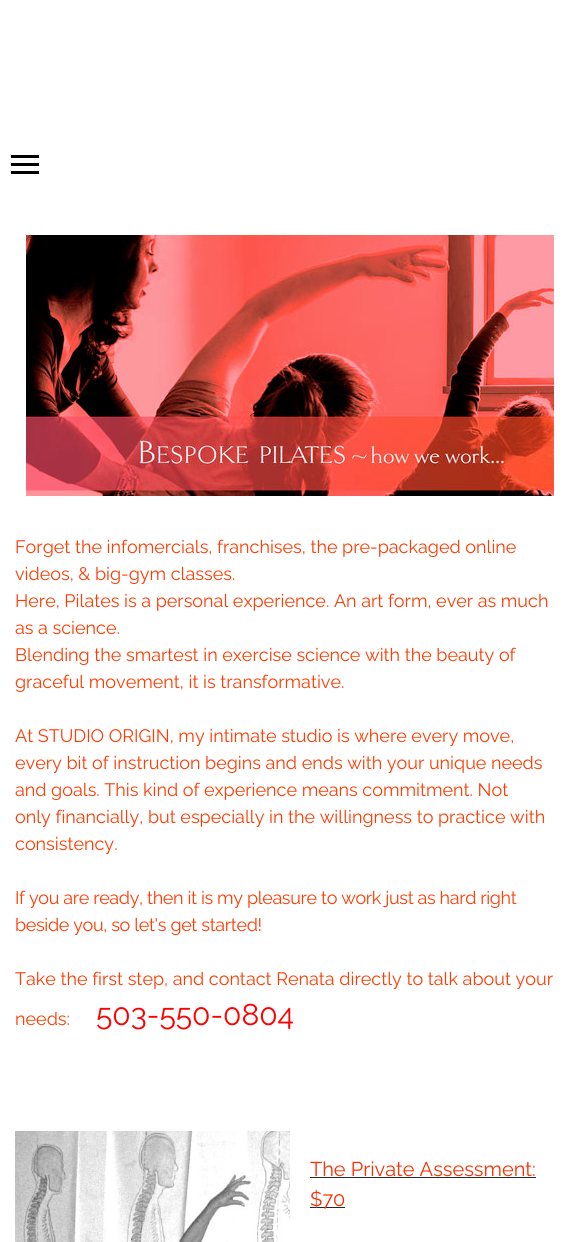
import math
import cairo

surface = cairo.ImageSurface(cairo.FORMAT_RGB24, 580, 1242)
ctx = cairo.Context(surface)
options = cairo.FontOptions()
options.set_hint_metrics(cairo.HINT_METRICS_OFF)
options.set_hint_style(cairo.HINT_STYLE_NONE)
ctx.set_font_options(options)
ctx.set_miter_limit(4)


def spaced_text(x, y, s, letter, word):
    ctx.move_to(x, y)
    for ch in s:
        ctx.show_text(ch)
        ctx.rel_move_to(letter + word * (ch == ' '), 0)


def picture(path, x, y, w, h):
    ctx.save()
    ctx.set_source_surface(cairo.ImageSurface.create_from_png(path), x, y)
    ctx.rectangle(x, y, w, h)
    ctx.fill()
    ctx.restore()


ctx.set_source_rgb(1, 1, 1)
ctx.paint()
ctx.set_source_rgb(0, 0, 0)
ctx.rectangle(11, 163, 28, 3)
ctx.fill()
ctx.rectangle(11, 155, 28, 3)
ctx.fill()
ctx.rectangle(11, 171, 28, 3)
ctx.fill()
picture("img1.png", 26, 235, 528, 261)
ctx.select_font_face("Raleway Thin")
ctx.set_font_size(18)
ctx.set_source_rgb(0.996, 0.239, 0.012)
ctx.move_to(15, 553)
ctx.show_text("Forget the infomercials, franchises, the pre-packaged online")
ctx.move_to(15, 580)
ctx.show_text("videos, & big-gym classes.")
ctx.move_to(15, 607)
ctx.show_text("Here, Pilates is a personal experience. An art form, ever as much")
ctx.move_to(15, 634)
ctx.show_text("as a science.")
ctx.move_to(15, 661)
ctx.show_text("Blending the smartest in exercise science with the beauty of")
ctx.move_to(15, 688)
ctx.show_text("graceful movement, it is transformative.")
ctx.move_to(15, 742)
ctx.show_text("At STUDIO ORIGIN, my intimate studio is where every move,")
ctx.move_to(15, 769)
ctx.show_text("every bit of instruction begins and ends with your unique needs")
ctx.move_to(15, 796)
ctx.show_text("and goals. This kind of experience means commitment. Not")
ctx.move_to(15, 823)
ctx.show_text("only financially, but especially in the willingness to practice with")
ctx.move_to(15, 850)
ctx.show_text("consistency.")
spaced_text(15, 904, "If you are ready, then it is my pleasure to work just as hard right", -0.35, 0)
spaced_text(15, 931, "beside you, so let's get started!", -0.35, 0)
ctx.move_to(15, 985)
ctx.show_text("Take the first step, and contact Renata directly to talk about your")
ctx.move_to(15, 1025)
ctx.show_text("needs:")
ctx.set_font_size(30)
ctx.set_source_rgb(1, 0, 0)
ctx.move_to(96, 1025)
ctx.show_text("503-550-0804")
picture("img2.png", 15, 1131, 275, 111)
ctx.set_font_size(20)
ctx.set_source_rgb(1, 0.18, 0)
ctx.move_to(310, 1176)
ctx.show_text("The Private Assessment:")
ctx.set_source_rgb(0.157, 0.157, 0.157)
ctx.rectangle(310, 1177, 226, 1)
ctx.fill()
ctx.rectangle(310, 1207, 35, 1)
ctx.fill()
ctx.set_source_rgb(1, 0.18, 0)
ctx.move_to(310, 1206)
ctx.show_text("$70")
surface.write_to_png("page.png")
